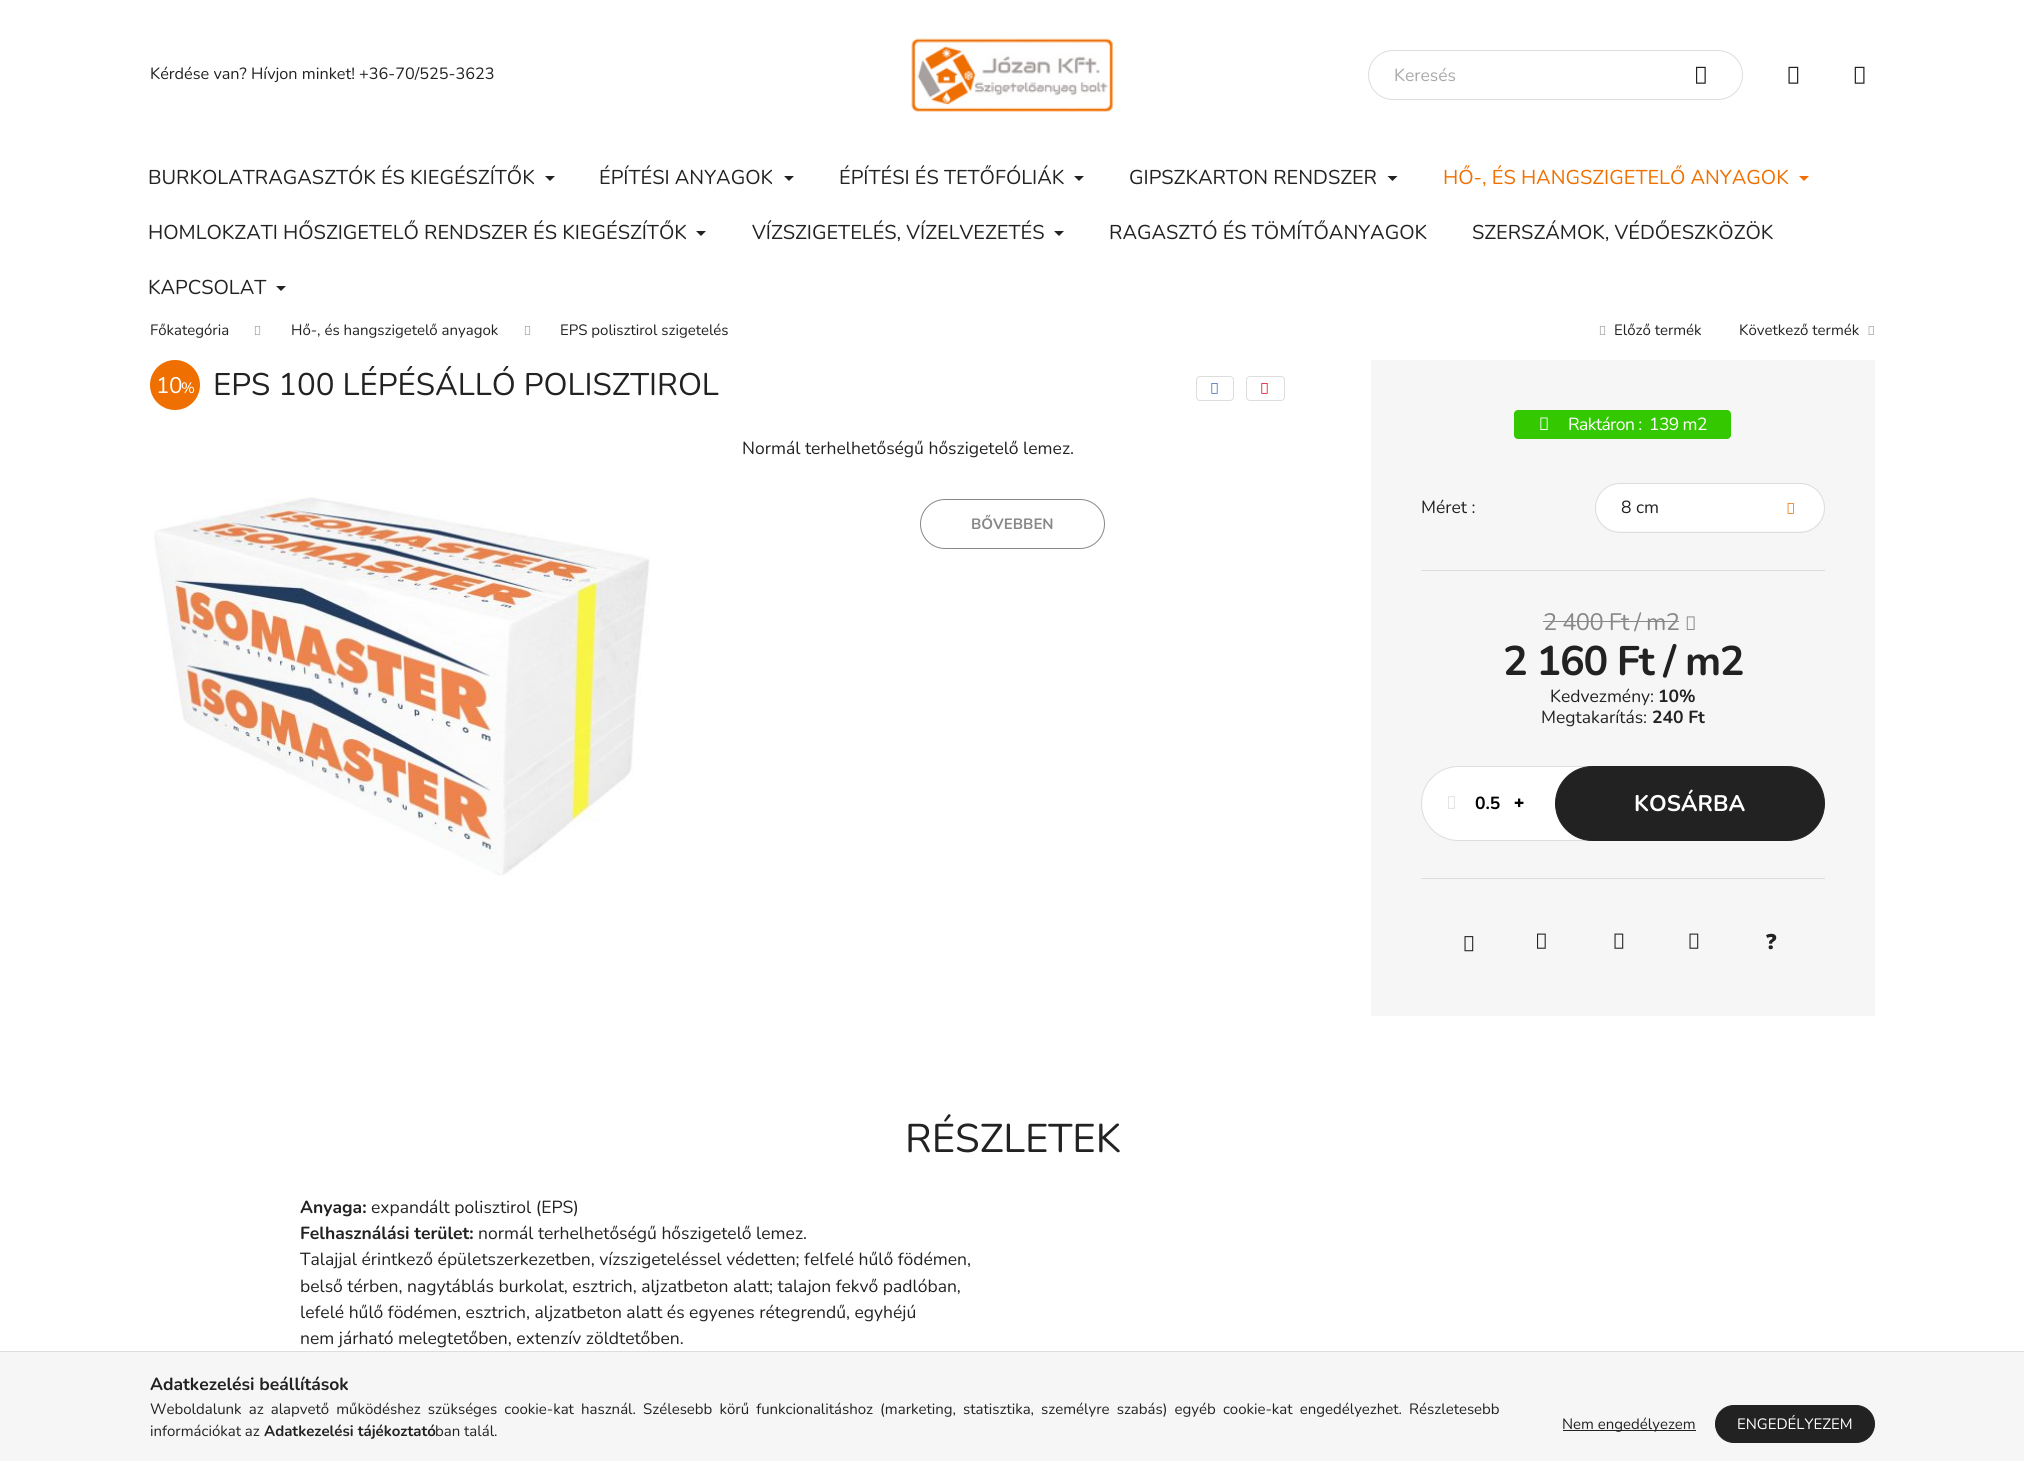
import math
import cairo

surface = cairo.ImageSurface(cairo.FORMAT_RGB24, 2024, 1461)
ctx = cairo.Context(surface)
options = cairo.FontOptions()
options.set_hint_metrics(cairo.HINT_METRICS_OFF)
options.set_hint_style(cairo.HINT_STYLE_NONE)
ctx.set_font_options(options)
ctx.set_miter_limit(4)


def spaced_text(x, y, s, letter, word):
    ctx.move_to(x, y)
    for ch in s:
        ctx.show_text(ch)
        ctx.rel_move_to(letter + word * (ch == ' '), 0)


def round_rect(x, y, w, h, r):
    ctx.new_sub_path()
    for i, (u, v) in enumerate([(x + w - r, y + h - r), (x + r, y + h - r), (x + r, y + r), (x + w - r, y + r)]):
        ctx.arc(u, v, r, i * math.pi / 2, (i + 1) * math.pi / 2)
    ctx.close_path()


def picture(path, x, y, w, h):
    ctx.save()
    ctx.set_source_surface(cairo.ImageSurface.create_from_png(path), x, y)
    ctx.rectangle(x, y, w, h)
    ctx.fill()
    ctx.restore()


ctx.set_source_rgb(1, 1, 1)
ctx.paint()
ctx.select_font_face("Nunito")
ctx.set_font_size(16.25)
ctx.set_source_rgb(0.133, 0.133, 0.133)
ctx.move_to(150, 79)
ctx.show_text("Kérdése van? Hívjon minket! +36-70/525-3623")
picture("img1.png", 911, 38, 203, 74)
round_rect(1368.5, 50.5, 374, 49, 24.5)
ctx.set_source_rgb(0.867, 0.867, 0.867)
ctx.set_line_width(1)
ctx.stroke()
ctx.set_font_size(17.5)
ctx.set_source_rgb(0.667, 0.667, 0.667)
ctx.move_to(1394, 81)
ctx.show_text("Keresés")
picture("img2.png", 1696, 66, 10, 18)
picture("img3.png", 1788, 66, 11, 18)
picture("img4.png", 1854, 66, 11, 18)
ctx.set_font_size(20)
ctx.set_source_rgb(0.133, 0.133, 0.133)
ctx.move_to(148, 184)
ctx.show_text("BURKOLATRAGASZTÓK ÉS KIEGÉSZÍTŐK")
ctx.new_path()
ctx.move_to(545, 176)
ctx.line_to(555, 176)
ctx.line_to(550, 181)
ctx.close_path()
ctx.fill()
ctx.move_to(599, 184)
ctx.show_text("ÉPÍTÉSI ANYAGOK")
ctx.new_path()
ctx.move_to(784, 176)
ctx.line_to(794, 176)
ctx.line_to(789, 181)
ctx.close_path()
ctx.fill()
ctx.move_to(839, 184)
ctx.show_text("ÉPÍTÉSI ÉS TETŐFÓLIÁK")
ctx.new_path()
ctx.move_to(1074, 176)
ctx.line_to(1084, 176)
ctx.line_to(1079, 181)
ctx.close_path()
ctx.fill()
ctx.move_to(1129, 184)
ctx.show_text("GIPSZKARTON RENDSZER")
ctx.new_path()
ctx.move_to(1387.5, 176)
ctx.line_to(1397.5, 176)
ctx.line_to(1392.5, 181)
ctx.close_path()
ctx.fill()
ctx.set_source_rgb(0.937, 0.439, 0)
ctx.move_to(1443, 184)
ctx.show_text("HŐ-, ÉS HANGSZIGETELŐ ANYAGOK")
ctx.new_path()
ctx.move_to(1799, 176)
ctx.line_to(1809, 176)
ctx.line_to(1804, 181)
ctx.close_path()
ctx.fill()
ctx.set_source_rgb(0.133, 0.133, 0.133)
ctx.move_to(148, 239)
ctx.show_text("HOMLOKZATI HŐSZIGETELŐ RENDSZER ÉS KIEGÉSZÍTŐK")
ctx.new_path()
ctx.move_to(696, 231)
ctx.line_to(706, 231)
ctx.line_to(701, 236)
ctx.close_path()
ctx.fill()
ctx.move_to(752, 239)
ctx.show_text("VÍZSZIGETELÉS, VÍZELVEZETÉS")
ctx.new_path()
ctx.move_to(1054, 231)
ctx.line_to(1064, 231)
ctx.line_to(1059, 236)
ctx.close_path()
ctx.fill()
ctx.move_to(1109, 239)
ctx.show_text("RAGASZTÓ ÉS TÖMÍTŐANYAGOK")
ctx.move_to(1472, 239)
ctx.show_text("SZERSZÁMOK, VÉDŐESZKÖZÖK")
ctx.move_to(148, 294)
ctx.show_text("KAPCSOLAT")
ctx.new_path()
ctx.move_to(276, 286)
ctx.line_to(286, 286)
ctx.line_to(281, 291)
ctx.close_path()
ctx.fill()
ctx.set_font_size(15)
ctx.move_to(150, 335)
ctx.show_text("Főkategória")
picture("img5.png", 254, 326, 7, 9)
ctx.move_to(291, 335)
ctx.show_text("Hő-, és hangszigetelő anyagok")
picture("img5.png", 524, 326, 7, 9)
ctx.move_to(560, 335)
ctx.show_text("EPS polisztirol szigetelés")
picture("img5.png", 1599, 326, 7, 9)
ctx.move_to(1614, 335)
ctx.show_text("Előző termék")
ctx.move_to(1739, 335)
ctx.show_text("Következő termék")
picture("img6.png", 1868, 326, 6, 9)
ctx.set_source_rgb(0.937, 0.439, 0)
ctx.arc(175, 385, 25, 0, 2 * math.pi)
ctx.fill()
ctx.set_font_size(22.5)
ctx.set_source_rgb(1, 1, 1)
spaced_text(156, 393, "10", -0.6, 0)
ctx.set_font_size(15)
spaced_text(181, 393, "%", -0.6, 0)
ctx.save()
ctx.rectangle(213, 366, 506, 38)
ctx.clip()
ctx.set_font_size(31.25)
ctx.set_source_rgb(0.133, 0.133, 0.133)
ctx.move_to(213, 395)
ctx.show_text("EPS 100 LÉPÉSÁLLÓ POLISZTIROL")
ctx.restore()
round_rect(1196.5, 376.5, 37, 24, 3.5)
ctx.set_source_rgb(0.867, 0.867, 0.867)
ctx.stroke()
picture("img7.png", 1211, 383, 7, 11)
round_rect(1246.5, 376.5, 38, 24, 3.5)
ctx.stroke()
picture("img8.png", 1261, 383, 7, 11)
ctx.set_font_size(17.5)
ctx.set_source_rgb(0.133, 0.133, 0.133)
ctx.move_to(742, 454)
ctx.show_text("Normál terhelhetőségű hőszigetelő lemez.")
round_rect(920.5, 499.5, 184, 49, 24.5)
ctx.set_source_rgb(0.533, 0.533, 0.533)
ctx.stroke()
ctx.select_font_face("Nunito", cairo.FONT_SLANT_NORMAL, cairo.FONT_WEIGHT_BOLD)
ctx.set_font_size(15)
ctx.move_to(971, 529)
ctx.show_text("BŐVEBBEN")
picture("img9.png", 154, 497, 496, 379)
ctx.set_source_rgb(0.961, 0.961, 0.961)
ctx.rectangle(1371, 360, 504, 656)
ctx.fill()
ctx.set_source_rgb(0.204, 0.784, 0)
round_rect(1514, 410, 217, 29, 4)
ctx.fill()
picture("img10.png", 1540, 417, 8, 13)
ctx.select_font_face("Nunito")
ctx.set_font_size(17.5)
ctx.set_source_rgb(1, 1, 1)
spaced_text(1568, 430, "Raktáron :", -0.6, 0)
spaced_text(1649, 430, "139 m2", -0.6, 0)
ctx.set_source_rgb(0.867, 0.867, 0.867)
ctx.rectangle(1421, 570, 404, 1)
ctx.fill()
ctx.set_source_rgb(0.133, 0.133, 0.133)
ctx.move_to(1421, 513)
ctx.show_text("Méret :")
ctx.set_source_rgb(1, 1, 1)
round_rect(1596, 484, 228, 47, 23.5)
ctx.fill()
round_rect(1595.5, 483.5, 229, 49, 24.5)
ctx.set_source_rgb(0.867, 0.867, 0.867)
ctx.stroke()
ctx.set_source_rgb(0.133, 0.133, 0.133)
ctx.move_to(1621, 513)
ctx.show_text("8 cm")
picture("img11.png", 1787, 503, 7, 11)
ctx.set_font_size(23.75)
ctx.set_source_rgb(0.533, 0.533, 0.533)
spaced_text(1543, 630, "2 400 Ft / m2", -0.6, 0)
ctx.rectangle(1543, 621, 136, 1)
ctx.fill()
picture("img12.png", 1686, 616, 9, 14)
ctx.select_font_face("Nunito", cairo.FONT_SLANT_NORMAL, cairo.FONT_WEIGHT_BOLD)
ctx.set_font_size(41.25)
ctx.set_source_rgb(0.133, 0.133, 0.133)
spaced_text(1503, 675, "2 160 Ft / m2", -1.25, 0)
ctx.select_font_face("Nunito")
ctx.set_font_size(17.5)
ctx.move_to(1550, 702)
ctx.show_text("Kedvezmény:")
ctx.select_font_face("Nunito", cairo.FONT_SLANT_NORMAL, cairo.FONT_WEIGHT_BOLD)
ctx.move_to(1658, 702)
ctx.show_text("10%")
ctx.select_font_face("Nunito")
ctx.move_to(1541, 723)
ctx.show_text("Megtakarítás:")
ctx.select_font_face("Nunito", cairo.FONT_SLANT_NORMAL, cairo.FONT_WEIGHT_BOLD)
ctx.move_to(1652, 723)
ctx.show_text("240 Ft")
ctx.set_source_rgb(1, 1, 1)
ctx.new_path()
ctx.move_to(1458.5, 766.5)
ctx.line_to(1592.5, 766.5)
ctx.line_to(1592.5, 840.5)
ctx.line_to(1458.5, 840.5)
ctx.curve_to(1438, 840.5, 1421.5, 824, 1421.5, 803.5)
ctx.curve_to(1421.5, 783, 1438, 766.5, 1458.5, 766.5)
ctx.close_path()
ctx.fill_preserve()
ctx.set_source_rgb(0.867, 0.867, 0.867)
ctx.stroke()
picture("img13.png", 1448, 796, 7, 13)
ctx.set_source_rgb(0, 0, 0)
ctx.move_to(1475, 809)
ctx.show_text("0.5")
ctx.select_font_face("Noto Sans Black")
ctx.move_to(1514, 809)
ctx.show_text("+")
ctx.set_source_rgb(0.133, 0.133, 0.133)
round_rect(1555.5, 766.5, 269, 74, 37)
ctx.fill_preserve()
ctx.stroke()
ctx.select_font_face("Nunito", cairo.FONT_SLANT_NORMAL, cairo.FONT_WEIGHT_BOLD)
ctx.set_font_size(22.5)
ctx.set_source_rgb(1, 1, 1)
ctx.move_to(1634, 811)
ctx.show_text("KOSÁRBA")
ctx.set_source_rgb(0.867, 0.867, 0.867)
ctx.rectangle(1421, 878, 404, 1)
ctx.fill()
picture("img14.png", 1464, 936, 10, 16)
picture("img15.png", 1537, 933, 9, 16)
picture("img16.png", 1614, 933, 10, 16)
picture("img16.png", 1689, 933, 10, 16)
ctx.select_font_face("Noto Sans Black")
ctx.set_font_size(21)
ctx.set_source_rgb(0.133, 0.133, 0.133)
ctx.move_to(1766, 949)
ctx.show_text("?")
ctx.select_font_face("Nunito")
ctx.set_font_size(40)
ctx.move_to(905, 1152)
ctx.show_text("RÉSZLETEK")
ctx.select_font_face("Nunito", cairo.FONT_SLANT_NORMAL, cairo.FONT_WEIGHT_BOLD)
ctx.set_font_size(17.5)
ctx.move_to(300, 1213)
ctx.show_text("Anyaga:")
ctx.select_font_face("Nunito")
ctx.move_to(371, 1213)
ctx.show_text("expandált polisztirol (EPS)")
ctx.select_font_face("Nunito", cairo.FONT_SLANT_NORMAL, cairo.FONT_WEIGHT_BOLD)
ctx.move_to(300, 1239)
ctx.show_text("Felhasználási terület:")
ctx.select_font_face("Nunito")
ctx.move_to(478, 1239)
ctx.show_text("normál terhelhetőségű hőszigetelő lemez.")
ctx.move_to(300, 1265)
ctx.show_text("Talajjal érintkező épületszerkezetben, vízszigeteléssel védetten; felfelé hűlő födémen,")
ctx.move_to(300, 1292)
ctx.show_text("belső térben, nagytáblás burkolat, esztrich, aljzatbeton alatt; talajon fekvő padlóban,")
ctx.move_to(300, 1318)
ctx.show_text("lefelé hűlő födémen, esztrich, aljzatbeton alatt és egyenes rétegrendű, egyhéjú")
ctx.move_to(300, 1344)
ctx.show_text("nem járható melegtetőben, extenzív zöldtetőben.")
ctx.set_source_rgb(0.961, 0.961, 0.961)
ctx.rectangle(0, 1352, 2024, 109)
ctx.fill()
ctx.set_source_rgb(0.867, 0.867, 0.867)
ctx.rectangle(0, 1351, 2024, 1)
ctx.fill()
ctx.select_font_face("Nunito", cairo.FONT_SLANT_NORMAL, cairo.FONT_WEIGHT_BOLD)
ctx.set_source_rgb(0.133, 0.133, 0.133)
ctx.move_to(150, 1390)
ctx.show_text("Adatkezelési beállítások")
ctx.select_font_face("Nunito")
ctx.set_font_size(15)
spaced_text(150, 1414, "Weboldalunk az alapvető működéshez szükséges cookie-kat használ. Szélesebb körű funkcionalitáshoz (marketing, statisztika, személyre szabás) egyéb cookie-kat engedélyezhet. Részletesebb", 0, 3.25)
ctx.move_to(150, 1436)
ctx.show_text("információkat az")
ctx.select_font_face("Nunito", cairo.FONT_SLANT_NORMAL, cairo.FONT_WEIGHT_BOLD)
ctx.move_to(264, 1436)
ctx.show_text("Adatkezelési tájékoztató")
ctx.select_font_face("Nunito")
ctx.move_to(435, 1436)
ctx.show_text("ban talál.")
ctx.rectangle(1563, 1430, 133, 1)
ctx.fill()
ctx.move_to(1562, 1429)
ctx.show_text("Nem engedélyezem")
round_rect(1715.5, 1405.5, 159, 37, 18.5)
ctx.fill_preserve()
ctx.stroke()
ctx.set_source_rgb(1, 1, 1)
ctx.move_to(1737, 1429)
ctx.show_text("ENGEDÉLYEZEM")
surface.write_to_png("page.png")
